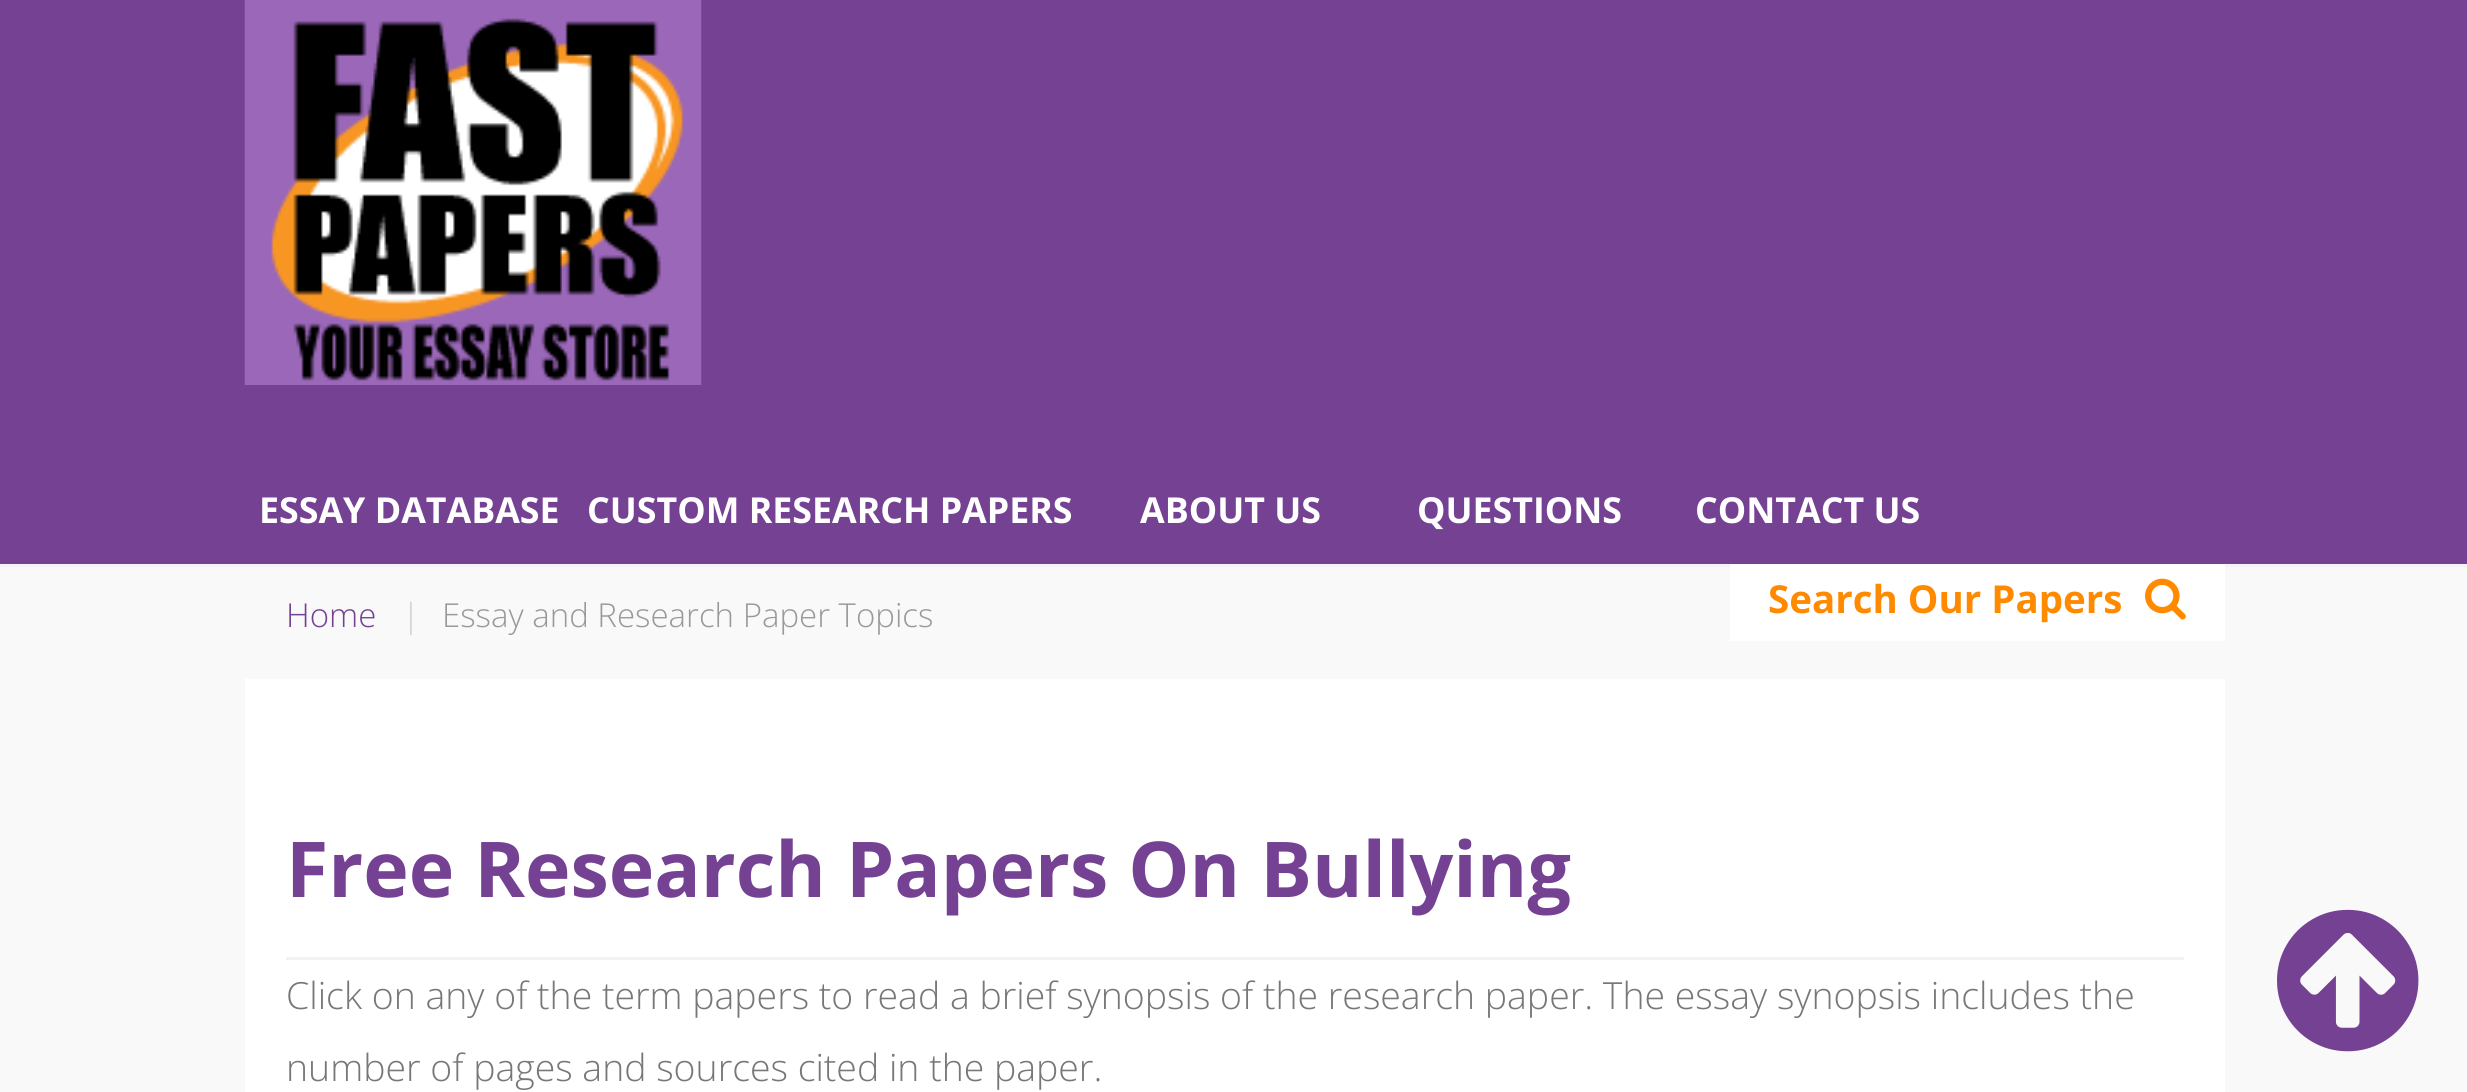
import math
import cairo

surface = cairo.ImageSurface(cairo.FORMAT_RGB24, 2467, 1092)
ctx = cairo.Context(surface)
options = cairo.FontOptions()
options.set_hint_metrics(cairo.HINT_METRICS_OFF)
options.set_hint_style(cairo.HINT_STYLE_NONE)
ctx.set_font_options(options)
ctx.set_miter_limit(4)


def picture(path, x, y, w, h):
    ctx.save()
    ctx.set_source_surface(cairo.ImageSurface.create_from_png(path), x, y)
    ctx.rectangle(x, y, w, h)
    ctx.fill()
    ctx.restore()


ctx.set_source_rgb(0.459, 0.255, 0.576)
ctx.paint()
picture("img1.png", 244, 0, 458, 385)
ctx.select_font_face("Open Sans", cairo.FONT_SLANT_NORMAL, cairo.FONT_WEIGHT_BOLD)
ctx.set_font_size(35.75)
ctx.set_source_rgb(1, 1, 1)
ctx.move_to(259, 523)
ctx.show_text("ESSAY DATABASE")
ctx.move_to(587, 523)
ctx.show_text("CUSTOM RESEARCH PAPERS")
ctx.move_to(1140, 523)
ctx.show_text("ABOUT US")
ctx.move_to(1417, 523)
ctx.show_text("QUESTIONS")
ctx.move_to(1695, 523)
ctx.show_text("CONTACT US")
ctx.set_source_rgb(0.976, 0.976, 0.976)
ctx.rectangle(0, 567, 2467, 525)
ctx.fill()
ctx.set_source_rgb(0.957, 0.957, 0.957)
ctx.rectangle(0, 564, 2467, 3)
ctx.fill()
ctx.select_font_face("Open Sans Light")
ctx.set_font_size(33)
ctx.set_source_rgb(0.459, 0.255, 0.576)
ctx.move_to(286, 627)
ctx.show_text("Home")
ctx.set_source_rgb(0.8, 0.8, 0.8)
ctx.move_to(402, 627)
ctx.show_text("|")
ctx.set_source_rgb(0.6, 0.6, 0.6)
ctx.move_to(442, 627)
ctx.show_text("Essay and Research Paper Topics")
ctx.set_source_rgb(1, 1, 1)
ctx.rectangle(1730, 564, 495, 77)
ctx.fill()
ctx.select_font_face("Open Sans", cairo.FONT_SLANT_NORMAL, cairo.FONT_WEIGHT_BOLD)
ctx.set_font_size(38.5)
ctx.set_source_rgb(1, 0.541, 0)
ctx.move_to(1768, 613)
ctx.show_text("Search Our Papers")
picture("img2.png", 2145, 578, 41, 42)
ctx.set_source_rgb(1, 1, 1)
ctx.rectangle(245, 679, 1980, 413)
ctx.fill()
ctx.set_source_rgb(0.949, 0.949, 0.949)
ctx.rectangle(286, 957, 1898, 3)
ctx.fill()
ctx.set_font_size(77)
ctx.set_source_rgb(0.459, 0.255, 0.576)
ctx.move_to(286, 897)
ctx.show_text("Free Research Papers On Bullying")
ctx.select_font_face("Open Sans Light")
ctx.set_font_size(37.4)
ctx.set_source_rgb(0.467, 0.467, 0.467)
ctx.move_to(286, 1009)
ctx.show_text("Click on any of the term papers to read a brief synopsis of the research paper. The essay synopsis includes the")
ctx.move_to(286, 1081)
ctx.show_text("number of pages and sources cited in the paper.")
picture("img3.png", 2277, 909, 142, 143)
surface.write_to_png("page.png")
